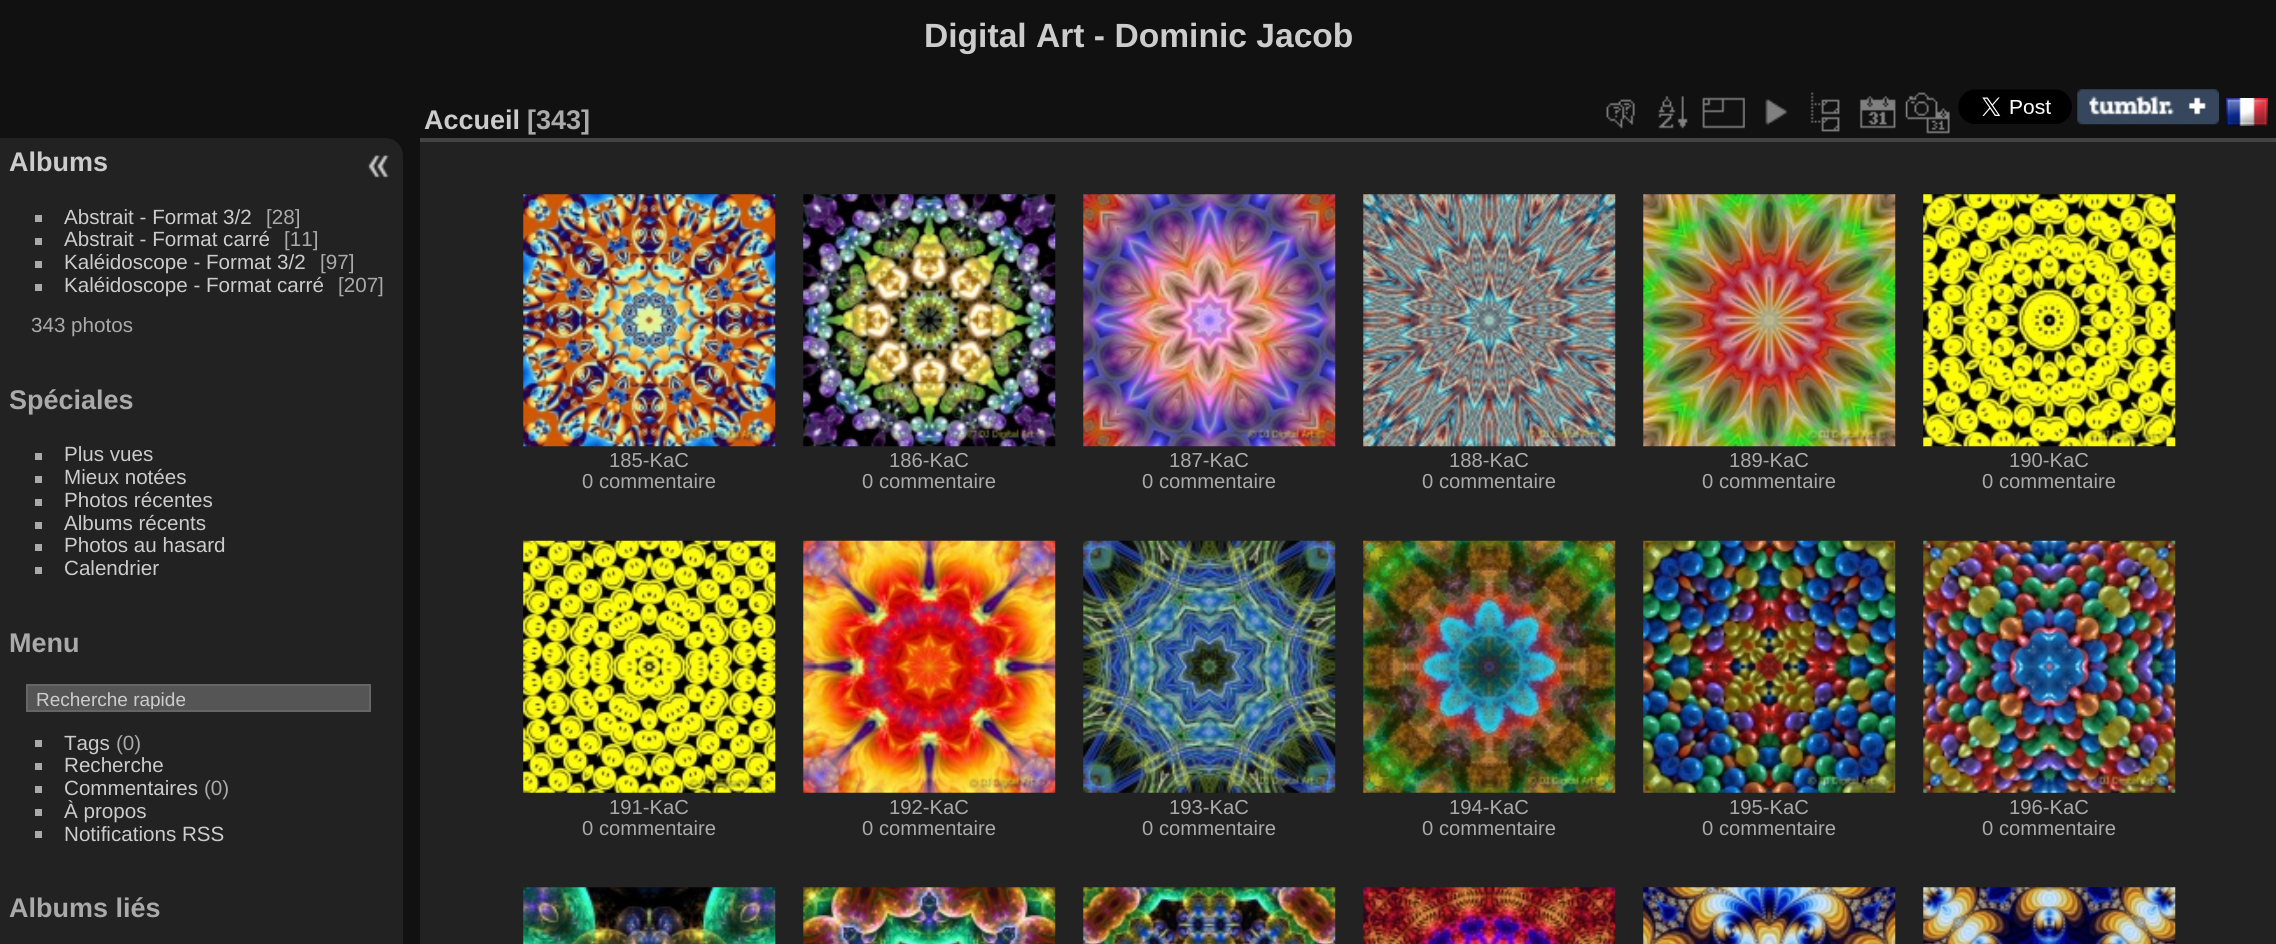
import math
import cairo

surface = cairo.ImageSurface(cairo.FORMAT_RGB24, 2276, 944)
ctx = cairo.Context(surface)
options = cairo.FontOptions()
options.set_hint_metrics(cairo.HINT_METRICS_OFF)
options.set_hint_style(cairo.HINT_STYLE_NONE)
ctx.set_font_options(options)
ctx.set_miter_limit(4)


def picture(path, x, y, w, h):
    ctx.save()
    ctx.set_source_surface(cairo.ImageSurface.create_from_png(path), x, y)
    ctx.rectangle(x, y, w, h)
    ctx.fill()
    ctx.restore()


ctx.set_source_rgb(0.067, 0.067, 0.067)
ctx.paint()
ctx.select_font_face("Liberation Sans", cairo.FONT_SLANT_NORMAL, cairo.FONT_WEIGHT_BOLD)
ctx.set_font_size(33.6)
ctx.set_source_rgb(0.8, 0.8, 0.8)
ctx.move_to(924, 47)
ctx.show_text("Digital Art - Dominic Jacob")
ctx.set_source_rgb(0.133, 0.133, 0.133)
ctx.new_path()
ctx.move_to(0, 138)
ctx.line_to(385, 138)
ctx.curve_to(395, 138, 403, 146, 403, 156)
ctx.line_to(403, 944)
ctx.curve_to(403, 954, 395, 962, 385, 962)
ctx.line_to(0, 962)
ctx.close_path()
ctx.fill()
ctx.set_font_size(27)
ctx.set_source_rgb(0.8, 0.8, 0.8)
ctx.move_to(9, 171)
ctx.show_text("Albums")
ctx.set_source_rgb(0.667, 0.667, 0.667)
ctx.rectangle(35, 215, 7, 7)
ctx.fill()
ctx.select_font_face("Liberation Sans")
ctx.set_font_size(20.6)
ctx.set_source_rgb(0.8, 0.8, 0.8)
ctx.move_to(64, 224)
ctx.show_text("Abstrait - Format 3/2")
ctx.set_source_rgb(0.667, 0.667, 0.667)
ctx.move_to(266, 224)
ctx.show_text("[28]")
ctx.rectangle(35, 238, 7, 7)
ctx.fill()
ctx.set_source_rgb(0.8, 0.8, 0.8)
ctx.move_to(64, 246)
ctx.show_text("Abstrait - Format carré")
ctx.set_source_rgb(0.667, 0.667, 0.667)
ctx.move_to(284, 246)
ctx.show_text("[11]")
ctx.rectangle(35, 261, 7, 7)
ctx.fill()
ctx.set_source_rgb(0.8, 0.8, 0.8)
ctx.move_to(64, 269)
ctx.show_text("Kaléidoscope - Format 3/2")
ctx.set_source_rgb(0.667, 0.667, 0.667)
ctx.move_to(320, 269)
ctx.show_text("[97]")
ctx.rectangle(35, 284, 7, 7)
ctx.fill()
ctx.set_source_rgb(0.8, 0.8, 0.8)
ctx.move_to(64, 292)
ctx.show_text("Kaléidoscope - Format carré")
ctx.set_source_rgb(0.667, 0.667, 0.667)
ctx.move_to(338, 292)
ctx.show_text("[207]")
ctx.move_to(31, 332)
ctx.show_text("343 photos")
ctx.select_font_face("Liberation Sans", cairo.FONT_SLANT_NORMAL, cairo.FONT_WEIGHT_BOLD)
ctx.set_font_size(27)
ctx.move_to(9, 409)
ctx.show_text("Spéciales")
ctx.rectangle(35, 453, 7, 7)
ctx.fill()
ctx.select_font_face("Liberation Sans")
ctx.set_font_size(20.6)
ctx.set_source_rgb(0.8, 0.8, 0.8)
ctx.move_to(64, 461)
ctx.show_text("Plus vues")
ctx.set_source_rgb(0.667, 0.667, 0.667)
ctx.rectangle(35, 476, 7, 7)
ctx.fill()
ctx.set_source_rgb(0.8, 0.8, 0.8)
ctx.move_to(64, 484)
ctx.show_text("Mieux notées")
ctx.set_source_rgb(0.667, 0.667, 0.667)
ctx.rectangle(35, 499, 7, 7)
ctx.fill()
ctx.set_source_rgb(0.8, 0.8, 0.8)
ctx.move_to(64, 507)
ctx.show_text("Photos récentes")
ctx.set_source_rgb(0.667, 0.667, 0.667)
ctx.rectangle(35, 522, 7, 7)
ctx.fill()
ctx.set_source_rgb(0.8, 0.8, 0.8)
ctx.move_to(64, 530)
ctx.show_text("Albums récents")
ctx.set_source_rgb(0.667, 0.667, 0.667)
ctx.rectangle(35, 544, 7, 7)
ctx.fill()
ctx.set_source_rgb(0.8, 0.8, 0.8)
ctx.move_to(64, 552)
ctx.show_text("Photos au hasard")
ctx.set_source_rgb(0.667, 0.667, 0.667)
ctx.rectangle(35, 567, 7, 7)
ctx.fill()
ctx.set_source_rgb(0.8, 0.8, 0.8)
ctx.move_to(64, 575)
ctx.show_text("Calendrier")
ctx.select_font_face("Liberation Sans", cairo.FONT_SLANT_NORMAL, cairo.FONT_WEIGHT_BOLD)
ctx.set_font_size(27)
ctx.set_source_rgb(0.667, 0.667, 0.667)
ctx.move_to(9, 652)
ctx.show_text("Menu")
ctx.set_source_rgb(0.333, 0.333, 0.333)
ctx.rectangle(27, 685, 343, 26)
ctx.fill_preserve()
ctx.set_source_rgb(0.4, 0.4, 0.4)
ctx.stroke()
ctx.save()
ctx.rectangle(32, 688, 334, 21)
ctx.clip()
ctx.select_font_face("Liberation Sans")
ctx.set_font_size(19)
ctx.set_source_rgb(0.8, 0.8, 0.8)
ctx.move_to(36, 706)
ctx.show_text("Recherche rapide")
ctx.restore()
ctx.set_source_rgb(0.667, 0.667, 0.667)
ctx.rectangle(35, 740, 7, 7)
ctx.fill()
ctx.select_font_face("Liberation Sans")
ctx.set_font_size(20.6)
ctx.set_source_rgb(0.8, 0.8, 0.8)
ctx.move_to(64, 750)
ctx.show_text("Tags")
ctx.set_source_rgb(0.667, 0.667, 0.667)
ctx.move_to(116, 750)
ctx.show_text("(0)")
ctx.rectangle(35, 763, 7, 7)
ctx.fill()
ctx.set_source_rgb(0.8, 0.8, 0.8)
ctx.move_to(64, 772)
ctx.show_text("Recherche")
ctx.set_source_rgb(0.667, 0.667, 0.667)
ctx.rectangle(35, 786, 7, 7)
ctx.fill()
ctx.set_source_rgb(0.8, 0.8, 0.8)
ctx.move_to(64, 795)
ctx.show_text("Commentaires")
ctx.set_source_rgb(0.667, 0.667, 0.667)
ctx.move_to(204, 795)
ctx.show_text("(0)")
ctx.rectangle(35, 809, 7, 7)
ctx.fill()
ctx.set_source_rgb(0.8, 0.8, 0.8)
ctx.move_to(64, 818)
ctx.show_text("À propos")
ctx.set_source_rgb(0.667, 0.667, 0.667)
ctx.rectangle(35, 831, 7, 7)
ctx.fill()
ctx.set_source_rgb(0.8, 0.8, 0.8)
ctx.move_to(64, 841)
ctx.show_text("Notifications RSS")
ctx.select_font_face("Liberation Sans", cairo.FONT_SLANT_NORMAL, cairo.FONT_WEIGHT_BOLD)
ctx.set_font_size(27)
ctx.set_source_rgb(0.667, 0.667, 0.667)
ctx.move_to(9, 917)
ctx.show_text("Albums liés")
ctx.set_source_rgb(0.133, 0.133, 0.133)
ctx.rectangle(420, 142, 1856, 802)
ctx.fill()
ctx.set_source_rgb(0.267, 0.267, 0.267)
ctx.rectangle(420, 138, 1856, 4)
ctx.fill()
ctx.set_source_rgb(0.8, 0.8, 0.8)
ctx.move_to(424, 129)
ctx.show_text("Accueil")
ctx.set_source_rgb(0.667, 0.667, 0.667)
ctx.move_to(527, 129)
ctx.show_text("[343]")
picture("img1.png", 1606, 99, 29, 30)
picture("img2.png", 1658, 95, 30, 34)
picture("img3.png", 1702, 97, 43, 32)
picture("img4.png", 1765, 99, 23, 26)
picture("img5.png", 1810, 92, 30, 40)
picture("img6.png", 1859, 95, 37, 34)
picture("img7.png", 1905, 92, 45, 42)
picture("img8.png", 1958, 89, 114, 35)
picture("img9.png", 2077, 89, 142, 36)
picture("img10.png", 2226, 98, 42, 28)
picture("img11.png", 523, 194, 253, 253)
ctx.select_font_face("Liberation Sans")
ctx.set_font_size(20.25)
ctx.move_to(609, 467)
ctx.show_text("185-KaC")
ctx.move_to(582, 488)
ctx.show_text("0 commentaire")
picture("img12.png", 803, 194, 253, 253)
ctx.move_to(889, 467)
ctx.show_text("186-KaC")
ctx.move_to(862, 488)
ctx.show_text("0 commentaire")
picture("img13.png", 1083, 194, 253, 253)
ctx.move_to(1169, 467)
ctx.show_text("187-KaC")
ctx.move_to(1142, 488)
ctx.show_text("0 commentaire")
picture("img14.png", 1363, 194, 253, 253)
ctx.move_to(1449, 467)
ctx.show_text("188-KaC")
ctx.move_to(1422, 488)
ctx.show_text("0 commentaire")
picture("img15.png", 1643, 194, 253, 253)
ctx.move_to(1729, 467)
ctx.show_text("189-KaC")
ctx.move_to(1702, 488)
ctx.show_text("0 commentaire")
picture("img16.png", 1923, 194, 253, 253)
ctx.move_to(2009, 467)
ctx.show_text("190-KaC")
ctx.move_to(1982, 488)
ctx.show_text("0 commentaire")
picture("img17.png", 523, 540, 253, 253)
ctx.move_to(609, 814)
ctx.show_text("191-KaC")
ctx.move_to(582, 835)
ctx.show_text("0 commentaire")
picture("img18.png", 803, 540, 253, 253)
ctx.move_to(889, 814)
ctx.show_text("192-KaC")
ctx.move_to(862, 835)
ctx.show_text("0 commentaire")
picture("img19.png", 1083, 540, 253, 253)
ctx.move_to(1169, 814)
ctx.show_text("193-KaC")
ctx.move_to(1142, 835)
ctx.show_text("0 commentaire")
picture("img20.png", 1363, 540, 253, 253)
ctx.move_to(1449, 814)
ctx.show_text("194-KaC")
ctx.move_to(1422, 835)
ctx.show_text("0 commentaire")
picture("img21.png", 1643, 540, 253, 253)
ctx.move_to(1729, 814)
ctx.show_text("195-KaC")
ctx.move_to(1702, 835)
ctx.show_text("0 commentaire")
picture("img22.png", 1923, 540, 253, 253)
ctx.move_to(2009, 814)
ctx.show_text("196-KaC")
ctx.move_to(1982, 835)
ctx.show_text("0 commentaire")
picture("img23.png", 523, 887, 253, 57)
picture("img24.png", 803, 887, 253, 57)
picture("img25.png", 1083, 887, 253, 57)
picture("img26.png", 1363, 887, 253, 57)
picture("img27.png", 1643, 887, 253, 57)
picture("img28.png", 1923, 887, 253, 57)
picture("img29.png", 367, 155, 22, 23)
surface.write_to_png("page.png")
